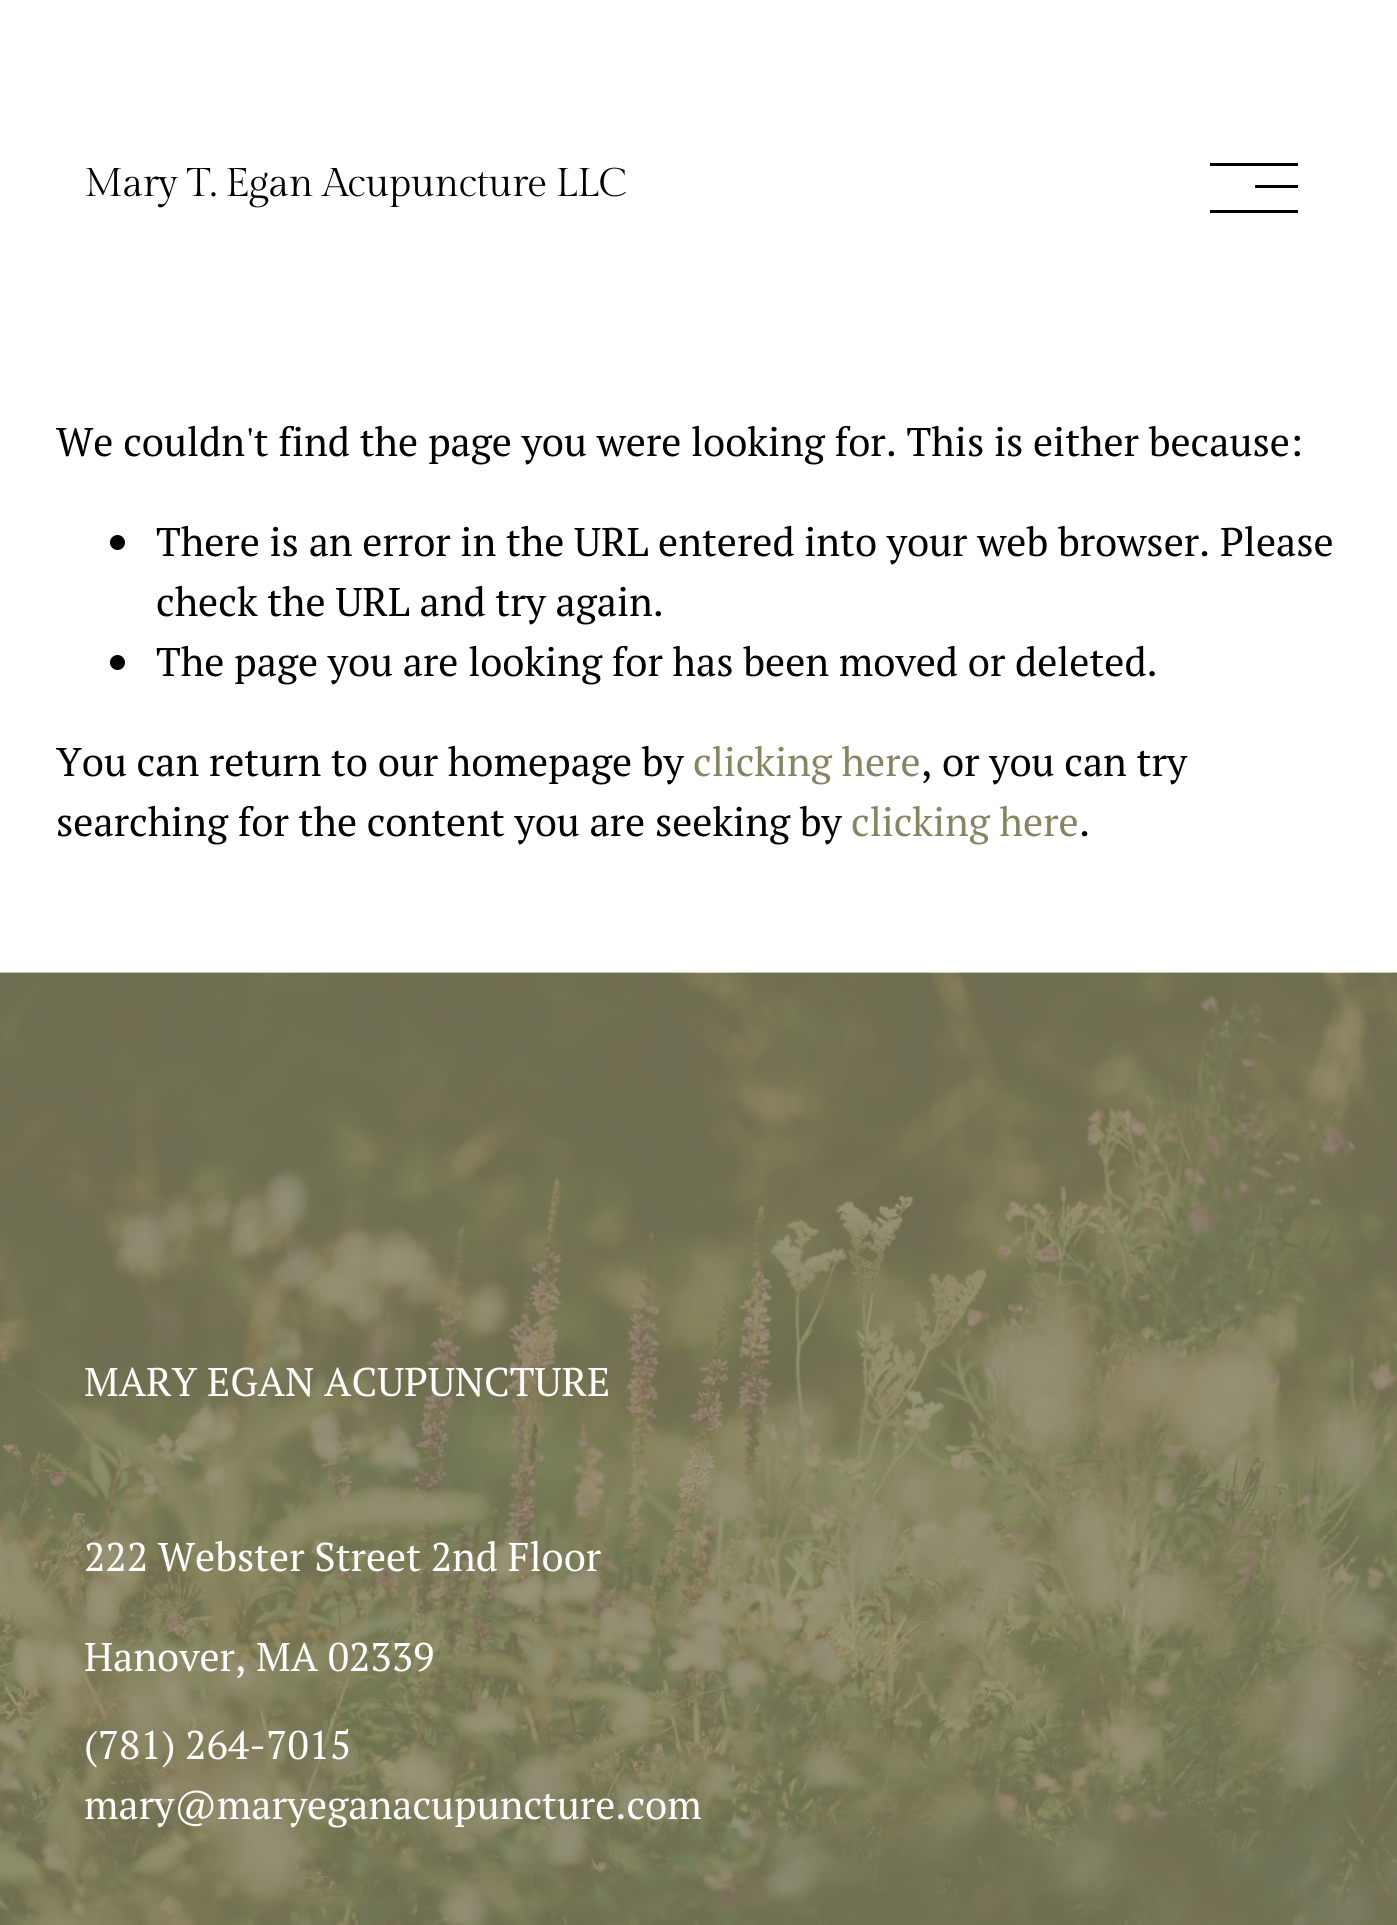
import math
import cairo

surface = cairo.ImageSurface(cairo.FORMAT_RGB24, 1397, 1925)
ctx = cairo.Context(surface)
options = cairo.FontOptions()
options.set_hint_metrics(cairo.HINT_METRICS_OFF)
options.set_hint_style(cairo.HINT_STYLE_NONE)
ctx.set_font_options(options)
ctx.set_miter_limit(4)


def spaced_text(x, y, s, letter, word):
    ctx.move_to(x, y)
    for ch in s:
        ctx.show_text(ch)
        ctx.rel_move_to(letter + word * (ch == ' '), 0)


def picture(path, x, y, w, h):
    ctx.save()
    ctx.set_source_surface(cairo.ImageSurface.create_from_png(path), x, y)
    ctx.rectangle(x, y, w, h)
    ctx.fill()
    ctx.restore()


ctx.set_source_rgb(1, 1, 1)
ctx.paint()
ctx.select_font_face("Gilda Display")
ctx.set_font_size(40)
ctx.set_source_rgb(0, 0, 0)
spaced_text(84, 196, "Mary T. Egan Acupuncture LLC", -0.8, 0)
ctx.rectangle(1210, 163, 88, 3)
ctx.fill()
ctx.rectangle(1255, 185, 43, 3)
ctx.fill()
ctx.rectangle(1210, 210, 88, 3)
ctx.fill()
ctx.select_font_face("PT Serif")
ctx.move_to(56, 456)
ctx.show_text("We couldn't find the page you were looking for. This is either because:")
ctx.new_path()
ctx.arc(117.5, 542.5, 7.5, 0, 2 * math.pi)
ctx.fill()
ctx.move_to(156, 556)
ctx.show_text("There is an error in the URL entered into your web browser. Please")
ctx.move_to(156, 616)
ctx.show_text("check the URL and try again.")
ctx.new_path()
ctx.arc(117.5, 662.5, 7.5, 0, 2 * math.pi)
ctx.fill()
ctx.move_to(156, 676)
ctx.show_text("The page you are looking for has been moved or deleted.")
ctx.move_to(56, 776)
ctx.show_text("You can return to our homepage by")
ctx.set_source_rgb(0.529, 0.518, 0.384)
ctx.move_to(693, 776)
ctx.show_text("clicking here")
ctx.set_source_rgb(0, 0, 0)
ctx.move_to(921, 776)
ctx.show_text(", or you can try")
ctx.move_to(56, 836)
ctx.show_text("searching for the content you are seeking by")
ctx.set_source_rgb(0.529, 0.518, 0.384)
ctx.move_to(851, 836)
ctx.show_text("clicking here")
ctx.set_source_rgb(0, 0, 0)
ctx.move_to(1079, 836)
ctx.show_text(".")
picture("img1.png", 0, 972, 1397, 953)
ctx.set_source_rgb(1, 1, 1)
ctx.move_to(84, 1396)
ctx.show_text("MARY EGAN ACUPUNCTURE")
ctx.move_to(84, 1571)
ctx.show_text("222 Webster Street 2nd Floor")
ctx.move_to(84, 1671)
ctx.show_text("Hanover, MA 02339")
ctx.move_to(84, 1759)
ctx.show_text("(781) 264-7015")
ctx.move_to(84, 1819)
ctx.show_text("mary@maryeganacupuncture.com")
surface.write_to_png("page.png")
